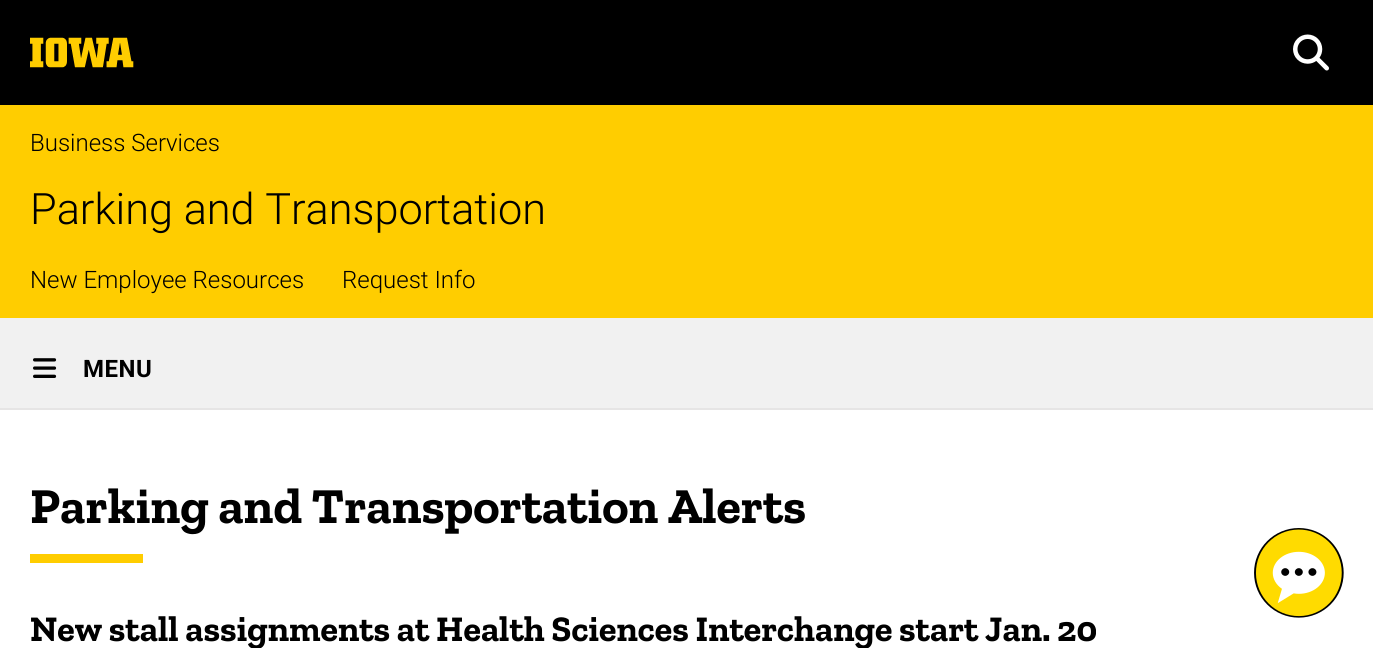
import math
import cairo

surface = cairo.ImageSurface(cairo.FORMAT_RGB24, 1373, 648)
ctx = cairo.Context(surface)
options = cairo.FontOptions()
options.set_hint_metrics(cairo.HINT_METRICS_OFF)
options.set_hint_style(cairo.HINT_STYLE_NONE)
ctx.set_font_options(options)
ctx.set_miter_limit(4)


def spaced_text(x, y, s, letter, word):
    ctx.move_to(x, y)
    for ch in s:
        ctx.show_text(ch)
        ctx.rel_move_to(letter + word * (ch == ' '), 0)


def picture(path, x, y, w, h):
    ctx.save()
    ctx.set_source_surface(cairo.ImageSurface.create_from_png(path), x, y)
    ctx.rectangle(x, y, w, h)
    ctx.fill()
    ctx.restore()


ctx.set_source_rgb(1, 1, 1)
ctx.paint()
ctx.set_source_rgb(0, 0, 0)
ctx.rectangle(0, 0, 1373, 105)
ctx.fill()
picture("img1.png", 30, 37, 104, 31)
ctx.set_source_rgb(1, 0.804, 0)
ctx.rectangle(0, 105, 1373, 213)
ctx.fill()
ctx.select_font_face("Roboto Light")
ctx.set_font_size(24)
ctx.set_source_rgb(0, 0, 0)
ctx.move_to(30, 151)
ctx.show_text("Business Services")
picture("img2.png", 1293, 34, 36, 37)
ctx.set_font_size(43.25)
ctx.move_to(30, 224)
ctx.show_text("Parking and Transportation")
ctx.set_font_size(24)
ctx.move_to(30, 288)
ctx.show_text("New Employee Resources")
ctx.move_to(342, 288)
ctx.show_text("Request Info")
ctx.set_source_rgb(0.902, 0.898, 0.898)
ctx.rectangle(0, 408, 1373, 2)
ctx.fill()
ctx.set_source_rgb(0.945, 0.945, 0.945)
ctx.rectangle(0, 318, 1373, 90)
ctx.fill()
picture("img3.png", 33, 358, 24, 20)
ctx.select_font_face("Roboto", cairo.FONT_SLANT_NORMAL, cairo.FONT_WEIGHT_BOLD)
ctx.set_source_rgb(0, 0, 0)
spaced_text(83, 377, "MENU", 0.5, 0)
ctx.select_font_face("Zilla Slab", cairo.FONT_SLANT_NORMAL, cairo.FONT_WEIGHT_BOLD)
ctx.set_font_size(50.25)
ctx.move_to(30, 523)
ctx.show_text("Parking and Transportation Alerts")
ctx.set_source_rgb(1, 0.804, 0)
ctx.rectangle(30, 554, 113, 9)
ctx.fill()
ctx.set_font_size(36)
ctx.set_source_rgb(0, 0, 0)
ctx.move_to(30, 641)
ctx.show_text("New stall assignments at Health Sciences Interchange start Jan. 20")
picture("img4.png", 1254, 528, 90, 90)
surface.write_to_png("page.png")
